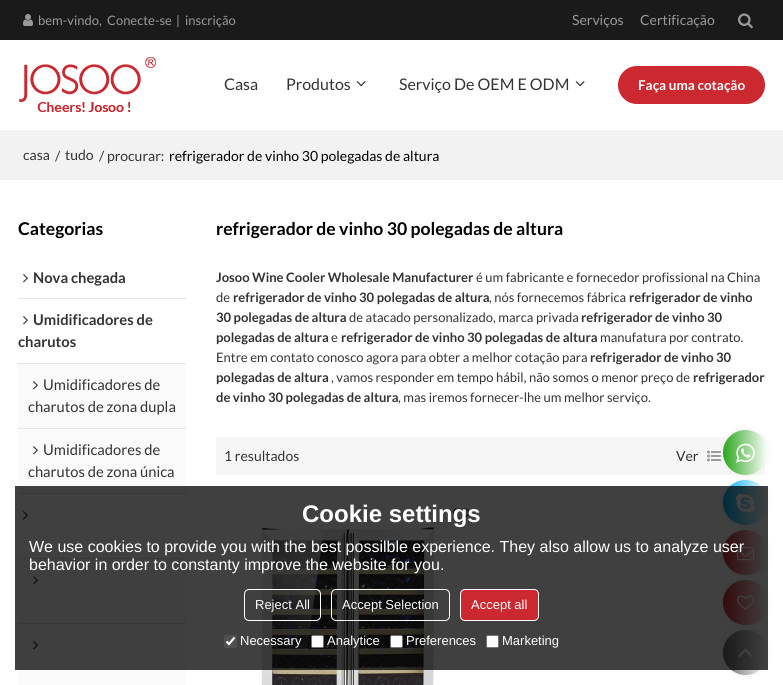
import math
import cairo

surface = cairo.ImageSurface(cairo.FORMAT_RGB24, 783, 685)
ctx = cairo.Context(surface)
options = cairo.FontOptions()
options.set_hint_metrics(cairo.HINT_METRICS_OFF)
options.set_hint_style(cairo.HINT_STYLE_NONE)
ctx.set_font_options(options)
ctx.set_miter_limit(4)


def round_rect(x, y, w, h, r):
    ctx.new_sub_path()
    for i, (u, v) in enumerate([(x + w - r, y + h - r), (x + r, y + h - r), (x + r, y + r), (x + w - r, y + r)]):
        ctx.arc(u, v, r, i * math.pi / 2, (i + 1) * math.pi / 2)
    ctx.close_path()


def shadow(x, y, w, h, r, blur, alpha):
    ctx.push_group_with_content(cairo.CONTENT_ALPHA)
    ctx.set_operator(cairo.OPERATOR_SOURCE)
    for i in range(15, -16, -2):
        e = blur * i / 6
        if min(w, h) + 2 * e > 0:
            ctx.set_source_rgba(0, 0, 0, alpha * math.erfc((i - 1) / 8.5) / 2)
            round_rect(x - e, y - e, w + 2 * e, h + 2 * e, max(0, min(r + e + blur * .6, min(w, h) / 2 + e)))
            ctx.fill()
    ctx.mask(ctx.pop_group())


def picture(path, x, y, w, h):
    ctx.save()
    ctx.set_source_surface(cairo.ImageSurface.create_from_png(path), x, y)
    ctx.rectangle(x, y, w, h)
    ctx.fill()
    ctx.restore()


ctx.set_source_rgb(1, 1, 1)
ctx.paint()
ctx.set_source_rgb(0.102, 0.102, 0.102)
ctx.rectangle(0, 0, 783, 40)
ctx.fill()
ctx.save()
ctx.rectangle(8, 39, 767, 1)
ctx.clip()
ctx.set_source_rgb(0, 0, 0)
shadow(0, 45, 783, 90, 0, 7.5, 0.1)
ctx.restore()
picture("img1.png", 23, 14, 10, 12)
ctx.select_font_face("Lato")
ctx.set_font_size(13)
ctx.set_source_rgb(0.6, 0.6, 0.6)
ctx.move_to(38, 25)
ctx.show_text("bem-vindo,")
ctx.move_to(107, 25)
ctx.show_text("Conecte-se")
ctx.move_to(176, 25)
ctx.show_text("|")
ctx.move_to(185, 25)
ctx.show_text("inscrição")
ctx.set_font_size(14)
ctx.move_to(572, 25)
ctx.show_text("Serviços")
ctx.move_to(640, 25)
ctx.show_text("Certificação")
picture("img2.png", 738, 13, 15, 16)
picture("img3.png", 19, 57, 137, 55)
ctx.set_font_size(16)
ctx.set_source_rgb(0.2, 0.2, 0.2)
ctx.move_to(224, 90)
ctx.show_text("Casa")
ctx.move_to(286, 90)
ctx.show_text("Produtos")
picture("img4.png", 356, 81, 10, 6)
ctx.move_to(399, 90)
ctx.show_text("Serviço De OEM E ODM")
picture("img4.png", 575, 81, 10, 6)
ctx.set_source_rgb(0.796, 0.157, 0.184)
round_rect(618, 66, 147, 38, 19)
ctx.fill()
ctx.select_font_face("Lato", cairo.FONT_SLANT_NORMAL, cairo.FONT_WEIGHT_BOLD)
ctx.set_font_size(13.5)
ctx.set_source_rgb(1, 1, 1)
ctx.move_to(638, 90)
ctx.show_text("Faça uma cotação")
ctx.set_source_rgb(0.949, 0.949, 0.949)
ctx.rectangle(0, 130, 783, 50)
ctx.fill()
ctx.select_font_face("Lato")
ctx.set_font_size(14)
ctx.set_source_rgb(0.2, 0.2, 0.2)
ctx.move_to(23, 160)
ctx.show_text("casa")
ctx.move_to(55, 161)
ctx.show_text("/")
ctx.move_to(65, 160)
ctx.show_text("tudo")
ctx.move_to(99, 161)
ctx.show_text("/ procurar:")
ctx.set_source_rgb(0, 0, 0)
ctx.move_to(169, 161)
ctx.show_text("refrigerador de vinho 30 polegadas de altura")
ctx.select_font_face("Lato", cairo.FONT_SLANT_NORMAL, cairo.FONT_WEIGHT_BOLD)
ctx.set_font_size(17.6)
ctx.move_to(18, 235)
ctx.show_text("Categorias")
ctx.set_source_rgb(0.898, 0.898, 0.898)
ctx.rectangle(18, 298, 168, 1)
ctx.fill()
picture("img5.png", 23, 274, 5, 9)
ctx.set_font_size(14.75)
ctx.set_source_rgb(0.2, 0.2, 0.2)
ctx.move_to(33, 283)
ctx.show_text("Nova chegada")
ctx.set_source_rgb(0.898, 0.898, 0.898)
ctx.rectangle(18, 363, 168, 1)
ctx.fill()
picture("img5.png", 23, 316, 5, 9)
ctx.set_source_rgb(0.2, 0.2, 0.2)
ctx.move_to(33, 325)
ctx.show_text("Umidificadores de")
ctx.move_to(18, 347)
ctx.show_text("charutos")
ctx.set_source_rgb(0.98, 0.98, 0.98)
ctx.rectangle(18, 364, 168, 64)
ctx.fill()
ctx.set_source_rgb(0.898, 0.898, 0.898)
ctx.rectangle(18, 428, 168, 1)
ctx.fill()
picture("img6.png", 33, 381, 5, 9)
ctx.select_font_face("Lato")
ctx.set_source_rgb(0.2, 0.2, 0.2)
ctx.move_to(43, 390)
ctx.show_text("Umidificadores de")
ctx.move_to(28, 412)
ctx.show_text("charutos de zona dupla")
ctx.set_source_rgb(0.98, 0.98, 0.98)
ctx.rectangle(18, 429, 168, 64)
ctx.fill()
ctx.set_source_rgb(0.898, 0.898, 0.898)
ctx.rectangle(18, 493, 168, 1)
ctx.fill()
picture("img6.png", 33, 446, 5, 9)
ctx.set_source_rgb(0.2, 0.2, 0.2)
ctx.move_to(43, 455)
ctx.show_text("Umidificadores de")
ctx.move_to(28, 477)
ctx.show_text("charutos de zona única")
ctx.set_source_rgb(0.898, 0.898, 0.898)
ctx.rectangle(18, 558, 168, 1)
ctx.fill()
picture("img5.png", 23, 511, 5, 9)
ctx.set_source_rgb(0.98, 0.98, 0.98)
ctx.rectangle(18, 559, 168, 64)
ctx.fill()
ctx.set_source_rgb(0.898, 0.898, 0.898)
ctx.rectangle(18, 623, 168, 1)
ctx.fill()
picture("img6.png", 33, 576, 5, 9)
ctx.set_source_rgb(0.98, 0.98, 0.98)
ctx.rectangle(18, 624, 168, 61)
ctx.fill()
picture("img6.png", 33, 641, 5, 9)
ctx.select_font_face("Lato", cairo.FONT_SLANT_NORMAL, cairo.FONT_WEIGHT_BOLD)
ctx.set_font_size(17.6)
ctx.set_source_rgb(0, 0, 0)
ctx.move_to(216, 235)
ctx.show_text("refrigerador de vinho 30 polegadas de altura")
ctx.set_font_size(13)
ctx.set_source_rgb(0.2, 0.2, 0.2)
ctx.move_to(216, 282)
ctx.show_text("Josoo Wine Cooler Wholesale Manufacturer")
ctx.select_font_face("Lato")
ctx.move_to(476, 282)
ctx.show_text("é um fabricante e fornecedor profissional na China")
ctx.move_to(216, 302)
ctx.show_text("de")
ctx.select_font_face("Lato", cairo.FONT_SLANT_NORMAL, cairo.FONT_WEIGHT_BOLD)
ctx.move_to(233, 302)
ctx.show_text("refrigerador de vinho 30 polegadas de altura")
ctx.select_font_face("Lato")
ctx.move_to(489, 302)
ctx.show_text(", nós fornecemos fábrica")
ctx.select_font_face("Lato", cairo.FONT_SLANT_NORMAL, cairo.FONT_WEIGHT_BOLD)
ctx.move_to(629, 302)
ctx.show_text("refrigerador de vinho")
ctx.move_to(216, 322)
ctx.show_text("30 polegadas de altura")
ctx.select_font_face("Lato")
ctx.move_to(349, 322)
ctx.show_text("de atacado personalizado, marca privada")
ctx.select_font_face("Lato", cairo.FONT_SLANT_NORMAL, cairo.FONT_WEIGHT_BOLD)
ctx.move_to(581, 322)
ctx.show_text("refrigerador de vinho 30")
ctx.move_to(216, 342)
ctx.show_text("polegadas de altura")
ctx.select_font_face("Lato")
ctx.move_to(331, 342)
ctx.show_text("e")
ctx.select_font_face("Lato", cairo.FONT_SLANT_NORMAL, cairo.FONT_WEIGHT_BOLD)
ctx.move_to(341, 342)
ctx.show_text("refrigerador de vinho 30 polegadas de altura")
ctx.select_font_face("Lato")
ctx.move_to(600, 342)
ctx.show_text("manufatura por contrato.")
ctx.move_to(216, 362)
ctx.show_text("Entre em contato conosco agora para obter a melhor cotação para")
ctx.select_font_face("Lato", cairo.FONT_SLANT_NORMAL, cairo.FONT_WEIGHT_BOLD)
ctx.move_to(590, 362)
ctx.show_text("refrigerador de vinho 30")
ctx.move_to(216, 382)
ctx.show_text("polegadas de altura")
ctx.select_font_face("Lato")
ctx.move_to(331, 382)
ctx.show_text(", vamos responder em tempo hábil, não somos o menor preço de")
ctx.select_font_face("Lato", cairo.FONT_SLANT_NORMAL, cairo.FONT_WEIGHT_BOLD)
ctx.move_to(693, 382)
ctx.show_text("refrigerador")
ctx.move_to(216, 402)
ctx.show_text("de vinho 30 polegadas de altura")
ctx.select_font_face("Lato")
ctx.move_to(398, 402)
ctx.show_text(", mas iremos fornecer-lhe um melhor serviço.")
ctx.set_source_rgb(0.961, 0.961, 0.961)
ctx.rectangle(216, 437, 549, 38)
ctx.fill()
ctx.set_font_size(14)
ctx.set_source_rgb(0.2, 0.2, 0.2)
ctx.move_to(224, 461)
ctx.show_text("1 resultados")
ctx.move_to(676, 461)
ctx.show_text("Ver")
picture("img7.png", 707, 450, 14, 12)
picture("img8.png", 453, 508, 16, 15)
picture("img9.png", 259, 527, 178, 158)
ctx.set_source_rgb(0.933, 0.933, 0.933)
shadow(723, 430, 45, 45, 22.5, 2.5, 1)
gradient = cairo.LinearGradient(723, 453, 768, 453)
gradient.add_color_stop_rgba(0, 0.161, 0.651, 0.102, 1)
gradient.add_color_stop_rgba(1, 1, 1, 1, 1)
ctx.set_source(gradient)
ctx.arc(745.5, 452.5, 22.5, 0, 2 * math.pi)
ctx.fill()
ctx.set_source_rgb(0.933, 0.933, 0.933)
shadow(723, 480, 45, 45, 22.5, 2.5, 1)
gradient = cairo.LinearGradient(723, 503, 768, 503)
gradient.add_color_stop_rgba(0, 0.004, 0.682, 0.953, 1)
gradient.add_color_stop_rgba(1, 1, 1, 1, 1)
ctx.set_source(gradient)
ctx.arc(745.5, 502.5, 22.5, 0, 2 * math.pi)
ctx.fill()
picture("img11.png", 736, 493, 19, 20)
ctx.set_source_rgb(0.933, 0.933, 0.933)
shadow(723, 530, 45, 45, 22.5, 2.5, 1)
gradient = cairo.LinearGradient(723, 553, 768, 553)
gradient.add_color_stop_rgba(0, 0.796, 0.157, 0.184, 1)
gradient.add_color_stop_rgba(1, 1, 1, 1, 1)
ctx.set_source(gradient)
ctx.arc(745.5, 552.5, 22.5, 0, 2 * math.pi)
ctx.fill()
picture("img12.png", 737, 546, 17, 15)
ctx.set_source_rgb(0.933, 0.933, 0.933)
shadow(723, 580, 45, 45, 22.5, 2.5, 1)
gradient = cairo.LinearGradient(723, 603, 768, 603)
gradient.add_color_stop_rgba(0, 0.796, 0.157, 0.184, 1)
gradient.add_color_stop_rgba(1, 1, 1, 1, 1)
ctx.set_source(gradient)
ctx.arc(745.5, 602.5, 22.5, 0, 2 * math.pi)
ctx.fill()
picture("img13.png", 737, 595, 17, 16)
ctx.set_source_rgb(0.933, 0.933, 0.933)
shadow(723, 630, 45, 45, 22.5, 2.5, 1)
gradient = cairo.LinearGradient(723, 653, 768, 653)
gradient.add_color_stop_rgba(0, 0.4, 0.4, 0.4, 1)
gradient.add_color_stop_rgba(1, 1, 1, 1, 1)
ctx.set_source(gradient)
ctx.arc(745.5, 652.5, 22.5, 0, 2 * math.pi)
ctx.fill()
picture("img14.png", 738, 648, 15, 9)
ctx.set_source_rgba(0, 0, 0, 0.75)
ctx.rectangle(15, 486, 753, 184)
ctx.fill()
ctx.select_font_face("Liberation Sans", cairo.FONT_SLANT_NORMAL, cairo.FONT_WEIGHT_BOLD)
ctx.set_font_size(24)
ctx.set_source_rgb(1, 1, 1)
ctx.move_to(302, 522)
ctx.show_text("Cookie settings")
ctx.select_font_face("Liberation Sans")
ctx.set_font_size(16)
ctx.move_to(29, 552)
ctx.show_text("We use cookies to provide you with the best possilble experience. They also allow us to analyze user")
ctx.move_to(29, 570)
ctx.show_text("behavior in order to constanty improve the website for you.")
round_rect(244.5, 589.5, 76, 31, 4.5)
ctx.set_line_width(1)
ctx.stroke()
ctx.set_font_size(13)
ctx.move_to(255, 609)
ctx.show_text("Reject All")
round_rect(331.5, 589.5, 118, 31, 4.5)
ctx.stroke()
ctx.move_to(342, 609)
ctx.show_text("Accept Selection")
ctx.set_source_rgb(0.796, 0.157, 0.184)
round_rect(460.5, 589.5, 78, 31, 4.5)
ctx.fill_preserve()
ctx.set_source_rgb(1, 1, 1)
ctx.stroke()
ctx.move_to(471, 609)
ctx.show_text("Accept all")
ctx.set_source_rgb(0.314, 0.314, 0.314)
round_rect(224, 635, 13, 13, 2)
ctx.fill()
ctx.new_path()
ctx.move_to(226.5, 641.5)
ctx.line_to(229, 644)
ctx.line_to(234.5, 637.5)
ctx.set_source_rgb(1, 1, 1)
ctx.set_line_width(2.1)
ctx.stroke()
ctx.move_to(240, 645)
ctx.show_text("Necessary")
round_rect(311.5, 635.5, 12, 12, 1.5)
ctx.fill_preserve()
ctx.set_source_rgb(0.463, 0.463, 0.463)
ctx.set_line_width(1)
ctx.stroke()
ctx.set_source_rgb(1, 1, 1)
ctx.move_to(327, 645)
ctx.show_text("Analytice")
round_rect(390.5, 635.5, 12, 12, 1.5)
ctx.fill_preserve()
ctx.set_source_rgb(0.463, 0.463, 0.463)
ctx.stroke()
ctx.set_source_rgb(1, 1, 1)
ctx.move_to(406, 645)
ctx.show_text("Preferences")
round_rect(486.5, 635.5, 12, 12, 1.5)
ctx.fill_preserve()
ctx.set_source_rgb(0.463, 0.463, 0.463)
ctx.stroke()
ctx.set_source_rgb(1, 1, 1)
ctx.move_to(502, 645)
ctx.show_text("Marketing")
picture("img10.png", 736, 443, 19, 20)
surface.write_to_png("page.png")
